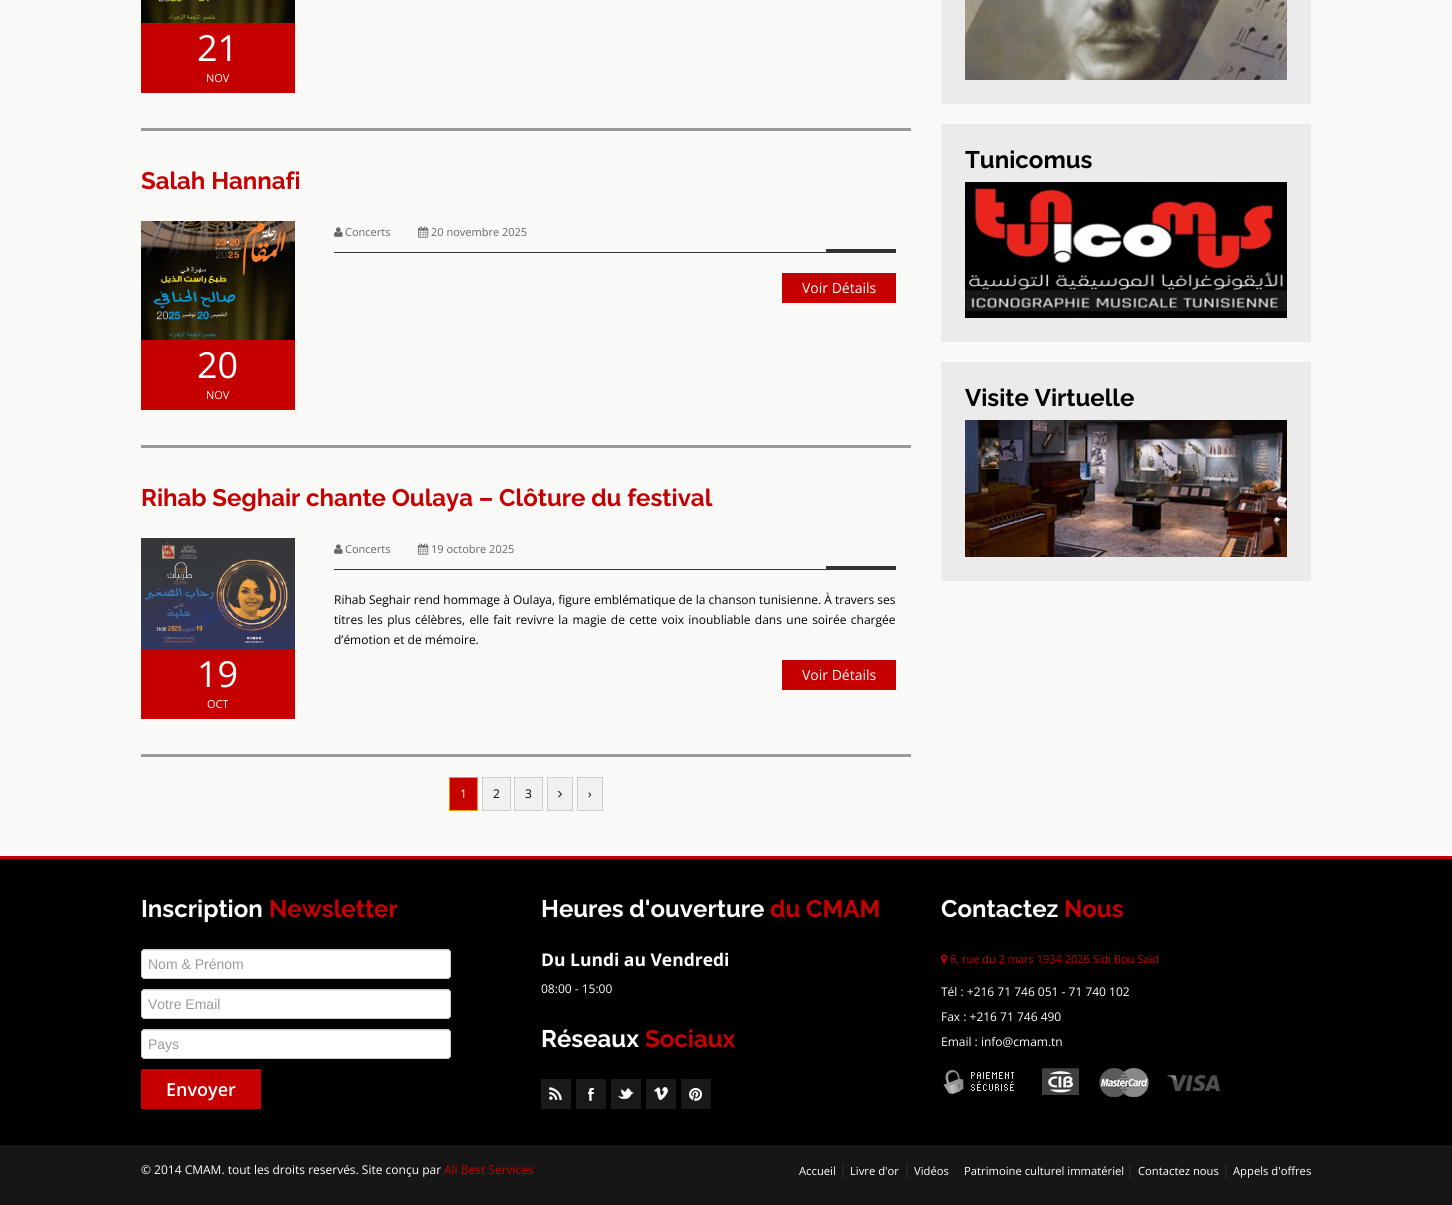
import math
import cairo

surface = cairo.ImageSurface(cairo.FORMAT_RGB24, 1452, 1205)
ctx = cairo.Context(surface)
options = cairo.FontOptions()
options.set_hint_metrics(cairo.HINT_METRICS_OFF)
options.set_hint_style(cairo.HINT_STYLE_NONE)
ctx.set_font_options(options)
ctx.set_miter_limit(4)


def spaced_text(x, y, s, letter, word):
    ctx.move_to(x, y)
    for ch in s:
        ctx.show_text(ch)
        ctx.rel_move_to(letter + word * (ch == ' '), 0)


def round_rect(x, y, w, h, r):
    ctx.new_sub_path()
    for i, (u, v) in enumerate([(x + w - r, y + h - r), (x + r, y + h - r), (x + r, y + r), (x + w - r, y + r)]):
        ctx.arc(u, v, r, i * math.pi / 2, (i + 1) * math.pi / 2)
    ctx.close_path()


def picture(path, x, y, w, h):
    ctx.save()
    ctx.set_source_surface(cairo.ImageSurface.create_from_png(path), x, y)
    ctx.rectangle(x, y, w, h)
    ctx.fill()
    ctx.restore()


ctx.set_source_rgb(0.976, 0.976, 0.969)
ctx.paint()
picture("img1.png", 141, 0, 154, 23)
ctx.set_source_rgb(0.776, 0, 0)
ctx.rectangle(141, 23, 154, 70)
ctx.fill()
ctx.select_font_face("Open Sans")
ctx.set_font_size(36)
ctx.set_source_rgb(1, 1, 1)
ctx.move_to(197, 61)
ctx.show_text("21")
ctx.set_font_size(11)
ctx.move_to(206, 82)
ctx.show_text("NOV")
ctx.set_source_rgb(0.604, 0.604, 0.6)
ctx.rectangle(141, 128, 770, 3)
ctx.fill()
ctx.select_font_face("Raleway", cairo.FONT_SLANT_NORMAL, cairo.FONT_WEIGHT_BOLD)
ctx.set_font_size(24)
ctx.set_source_rgb(0.776, 0, 0)
ctx.move_to(141, 189)
ctx.show_text("Salah Hannafi")
ctx.set_source_rgb(0.2, 0.2, 0.2)
ctx.rectangle(334, 252, 562, 1)
ctx.fill()
picture("img2.png", 334, 227, 9, 10)
ctx.select_font_face("Open Sans")
ctx.set_font_size(11)
ctx.set_source_rgb(0.4, 0.4, 0.4)
ctx.move_to(345, 236)
ctx.show_text("Concerts")
picture("img3.png", 418, 226, 11, 12)
ctx.move_to(431, 236)
ctx.show_text("20 novembre 2025")
ctx.set_source_rgb(0.2, 0.2, 0.2)
ctx.rectangle(826, 249, 70, 3)
ctx.fill()
ctx.set_source_rgb(0.776, 0, 0)
ctx.rectangle(782, 273, 114, 30)
ctx.fill()
ctx.set_font_size(14)
ctx.set_source_rgb(1, 1, 1)
ctx.move_to(802, 293)
ctx.show_text("Voir Détails")
picture("img4.png", 141, 221, 154, 119)
ctx.set_source_rgb(0.776, 0, 0)
ctx.rectangle(141, 340, 154, 70)
ctx.fill()
ctx.set_font_size(36)
ctx.set_source_rgb(1, 1, 1)
ctx.move_to(197, 378)
ctx.show_text("20")
ctx.set_font_size(11)
ctx.move_to(206, 399)
ctx.show_text("NOV")
ctx.set_source_rgb(0.604, 0.604, 0.6)
ctx.rectangle(141, 445, 770, 3)
ctx.fill()
ctx.select_font_face("Raleway", cairo.FONT_SLANT_NORMAL, cairo.FONT_WEIGHT_BOLD)
ctx.set_font_size(24)
ctx.set_source_rgb(0.776, 0, 0)
ctx.move_to(141, 506)
ctx.show_text("Rihab Seghair chante Oulaya – Clôture du festival")
picture("img5.png", 141, 538, 154, 111)
ctx.rectangle(141, 649, 154, 70)
ctx.fill()
ctx.select_font_face("Open Sans")
ctx.set_font_size(36)
ctx.set_source_rgb(1, 1, 1)
ctx.move_to(197, 687)
ctx.show_text("19")
ctx.set_font_size(11)
ctx.move_to(207, 708)
ctx.show_text("OCT")
ctx.set_source_rgb(0.2, 0.2, 0.2)
ctx.rectangle(334, 569, 562, 1)
ctx.fill()
picture("img2.png", 334, 544, 9, 10)
ctx.set_source_rgb(0.4, 0.4, 0.4)
ctx.move_to(345, 553)
ctx.show_text("Concerts")
picture("img3.png", 418, 543, 11, 12)
ctx.move_to(431, 553)
ctx.show_text("19 octobre 2025")
ctx.set_source_rgb(0.2, 0.2, 0.2)
ctx.rectangle(826, 566, 70, 3)
ctx.fill()
ctx.set_font_size(12)
ctx.set_source_rgb(0, 0, 0)
ctx.move_to(334, 604)
ctx.show_text("Rihab Seghair rend hommage à Oulaya, figure emblématique de la chanson tunisienne. À travers ses")
spaced_text(334, 624, "titres les plus célèbres, elle fait revivre la magie de cette voix inoubliable dans une soirée chargée", 0, 1.25)
ctx.move_to(334, 644)
ctx.show_text("d’émotion et de mémoire.")
ctx.set_source_rgb(0.776, 0, 0)
ctx.rectangle(782, 660, 114, 30)
ctx.fill()
ctx.set_font_size(14)
ctx.set_source_rgb(1, 1, 1)
ctx.move_to(802, 680)
ctx.show_text("Voir Détails")
ctx.set_source_rgb(0.604, 0.604, 0.6)
ctx.rectangle(141, 754, 770, 3)
ctx.fill()
ctx.set_source_rgb(0.776, 0, 0)
ctx.rectangle(449.5, 777.5, 28, 33)
ctx.fill_preserve()
ctx.set_source_rgb(0.973, 0.58, 0.024)
ctx.set_line_width(1)
ctx.stroke()
ctx.set_font_size(12)
ctx.set_source_rgb(1, 1, 1)
ctx.move_to(460, 798)
ctx.show_text("1")
ctx.set_source_rgb(0.945, 0.945, 0.945)
ctx.rectangle(482.5, 777.5, 28, 33)
ctx.fill_preserve()
ctx.set_source_rgb(0.8, 0.8, 0.8)
ctx.stroke()
ctx.set_source_rgb(0, 0, 0)
ctx.move_to(493, 798)
ctx.show_text("2")
ctx.set_source_rgb(0.945, 0.945, 0.945)
ctx.rectangle(514.5, 777.5, 28, 33)
ctx.fill_preserve()
ctx.set_source_rgb(0.8, 0.8, 0.8)
ctx.stroke()
ctx.set_source_rgb(0, 0, 0)
ctx.move_to(525, 798)
ctx.show_text("3")
ctx.set_source_rgb(0.945, 0.945, 0.945)
ctx.rectangle(547.5, 777.5, 25, 33)
ctx.fill_preserve()
ctx.set_source_rgb(0.8, 0.8, 0.8)
ctx.stroke()
picture("img6.png", 558, 790, 4, 8)
ctx.set_source_rgb(0.945, 0.945, 0.945)
ctx.rectangle(577.5, 777.5, 25, 33)
ctx.fill_preserve()
ctx.set_source_rgb(0.8, 0.8, 0.8)
ctx.stroke()
ctx.set_source_rgb(0, 0, 0)
ctx.move_to(588, 798)
ctx.show_text("›")
ctx.set_source_rgb(0.918, 0.918, 0.918)
ctx.rectangle(941, 0, 370, 104)
ctx.fill()
picture("img7.png", 965, 0, 322, 80)
ctx.rectangle(941, 124, 370, 218)
ctx.fill()
ctx.select_font_face("Raleway", cairo.FONT_SLANT_NORMAL, cairo.FONT_WEIGHT_BOLD)
ctx.set_font_size(24)
ctx.set_source_rgb(0, 0, 0)
ctx.move_to(965, 168)
ctx.show_text("Tunicomus")
picture("img8.png", 965, 182, 322, 136)
ctx.set_source_rgb(0.918, 0.918, 0.918)
ctx.rectangle(941, 362, 370, 219)
ctx.fill()
ctx.set_source_rgb(0, 0, 0)
ctx.move_to(965, 406)
ctx.show_text("Visite Virtuelle")
picture("img9.png", 965, 420, 322, 137)
ctx.set_source_rgb(0.776, 0, 0)
ctx.rectangle(0, 856, 1452, 3)
ctx.fill()
ctx.set_source_rgb(0, 0, 0)
ctx.rectangle(0, 859, 1452, 286)
ctx.fill()
ctx.set_source_rgb(1, 1, 1)
ctx.move_to(141, 917)
ctx.show_text("Inscription")
ctx.set_source_rgb(0.776, 0, 0)
ctx.move_to(269, 917)
ctx.show_text("Newsletter")
ctx.set_source_rgb(1, 1, 1)
round_rect(141, 949, 310, 30, 4)
ctx.fill()
ctx.set_source_rgb(0.925, 0.925, 0.925)
ctx.new_path()
ctx.move_to(145, 951)
ctx.line_to(447, 951)
ctx.curve_to(449, 951, 450, 952, 450, 954)
ctx.line_to(449, 951)
ctx.line_to(448, 950)
ctx.line_to(145, 950)
ctx.curve_to(143, 950, 142, 952, 142, 954)
ctx.curve_to(142, 952, 143, 951, 145, 951)
ctx.close_path()
ctx.fill()
round_rect(141.5, 949.5, 309, 29, 3.5)
ctx.set_source_rgb(0.8, 0.8, 0.8)
ctx.stroke()
ctx.select_font_face("Liberation Sans")
ctx.set_font_size(14)
ctx.set_source_rgb(0.6, 0.6, 0.6)
ctx.move_to(148, 969)
ctx.show_text("Nom & Prénom")
ctx.set_source_rgb(1, 1, 1)
round_rect(141, 989, 310, 30, 4)
ctx.fill()
ctx.set_source_rgb(0.925, 0.925, 0.925)
ctx.new_path()
ctx.move_to(145, 991)
ctx.line_to(447, 991)
ctx.curve_to(449, 991, 450, 992, 450, 994)
ctx.line_to(449, 991)
ctx.line_to(448, 990)
ctx.line_to(145, 990)
ctx.curve_to(143, 990, 142, 992, 142, 994)
ctx.curve_to(142, 992, 143, 991, 145, 991)
ctx.close_path()
ctx.fill()
round_rect(141.5, 989.5, 309, 29, 3.5)
ctx.set_source_rgb(0.8, 0.8, 0.8)
ctx.stroke()
ctx.set_source_rgb(0.6, 0.6, 0.6)
ctx.move_to(148, 1009)
ctx.show_text("Votre Email")
ctx.set_source_rgb(1, 1, 1)
round_rect(141, 1029, 310, 30, 4)
ctx.fill()
ctx.set_source_rgb(0.925, 0.925, 0.925)
ctx.new_path()
ctx.move_to(145, 1031)
ctx.line_to(447, 1031)
ctx.curve_to(449, 1031, 450, 1032, 450, 1034)
ctx.line_to(449, 1031)
ctx.line_to(448, 1030)
ctx.line_to(145, 1030)
ctx.curve_to(143, 1030, 142, 1032, 142, 1034)
ctx.curve_to(142, 1032, 143, 1031, 145, 1031)
ctx.close_path()
ctx.fill()
round_rect(141.5, 1029.5, 309, 29, 3.5)
ctx.set_source_rgb(0.8, 0.8, 0.8)
ctx.stroke()
ctx.set_source_rgb(0.6, 0.6, 0.6)
ctx.move_to(148, 1049)
ctx.show_text("Pays")
ctx.set_source_rgb(0.776, 0, 0)
ctx.rectangle(141, 1069, 120, 40)
ctx.fill()
ctx.select_font_face("Open Sans SemiBold")
ctx.set_font_size(18)
ctx.set_source_rgb(1, 1, 1)
ctx.move_to(166, 1096)
ctx.show_text("Envoyer")
ctx.select_font_face("Raleway", cairo.FONT_SLANT_NORMAL, cairo.FONT_WEIGHT_BOLD)
ctx.set_font_size(24)
ctx.move_to(541, 917)
ctx.show_text("Heures d'ouverture")
ctx.set_source_rgb(0.776, 0, 0)
ctx.move_to(770, 917)
ctx.show_text("du CMAM")
ctx.select_font_face("Open Sans", cairo.FONT_SLANT_NORMAL, cairo.FONT_WEIGHT_BOLD)
ctx.set_font_size(17.5)
ctx.set_source_rgb(1, 1, 1)
ctx.move_to(541, 966)
ctx.show_text("Du Lundi au Vendredi")
ctx.select_font_face("Open Sans")
ctx.set_font_size(12)
ctx.move_to(541, 993)
ctx.show_text("08:00 - 15:00")
ctx.select_font_face("Raleway", cairo.FONT_SLANT_NORMAL, cairo.FONT_WEIGHT_BOLD)
ctx.set_font_size(24)
ctx.move_to(541, 1047)
ctx.show_text("Réseaux")
ctx.set_source_rgb(0.776, 0, 0)
ctx.move_to(645, 1047)
ctx.show_text("Sociaux")
ctx.set_source_rgb(0.098, 0.098, 0.098)
ctx.rectangle(541, 1079, 30, 30)
ctx.fill()
picture("img10.png", 549, 1087, 13, 14)
ctx.rectangle(576, 1079, 30, 30)
ctx.fill()
picture("img11.png", 588, 1088, 6, 13)
ctx.rectangle(611, 1079, 30, 30)
ctx.fill()
picture("img12.png", 618, 1088, 16, 12)
ctx.rectangle(646, 1079, 30, 30)
ctx.fill()
picture("img13.png", 654, 1087, 14, 14)
ctx.rectangle(681, 1079, 30, 30)
ctx.fill()
picture("img14.png", 689, 1088, 13, 13)
ctx.set_source_rgb(1, 1, 1)
ctx.move_to(941, 917)
ctx.show_text("Contactez")
ctx.set_source_rgb(0.776, 0, 0)
ctx.move_to(1064, 917)
ctx.show_text("Nous")
picture("img15.png", 941, 954, 7, 10)
ctx.select_font_face("Open Sans")
ctx.set_font_size(11)
ctx.move_to(950, 963)
ctx.show_text("8, rue du 2 mars 1934 2026 Sidi Bou Saïd")
ctx.set_font_size(12)
ctx.set_source_rgb(1, 1, 1)
ctx.move_to(941, 996)
ctx.show_text("Tél : +216 71 746 051 - 71 740 102")
ctx.move_to(941, 1021)
ctx.show_text("Fax : +216 71 746 490")
ctx.move_to(941, 1046)
ctx.show_text("Email : info@cmam.tn")
picture("img16.png", 943, 1068, 277, 29)
ctx.set_source_rgb(0.086, 0.086, 0.086)
ctx.rectangle(0, 1145, 1452, 60)
ctx.fill()
ctx.set_source_rgb(1, 1, 1)
ctx.move_to(141, 1174)
ctx.show_text("© 2014 CMAM. tout les droits reservés. Site conçu par")
ctx.set_source_rgb(0.776, 0, 0)
ctx.move_to(444, 1174)
ctx.show_text("All Best Services")
ctx.set_font_size(11.25)
ctx.set_source_rgb(1, 1, 1)
ctx.move_to(799, 1175)
ctx.show_text("Accueil")
ctx.set_font_size(14)
ctx.set_source_rgb(0.2, 0.2, 0.2)
ctx.move_to(839, 1175)
ctx.show_text("|")
ctx.set_font_size(11.25)
ctx.set_source_rgb(1, 1, 1)
ctx.move_to(850, 1175)
ctx.show_text("Livre d'or")
ctx.set_font_size(14)
ctx.set_source_rgb(0.2, 0.2, 0.2)
ctx.move_to(903, 1175)
ctx.show_text("|")
ctx.set_font_size(11.25)
ctx.set_source_rgb(1, 1, 1)
ctx.move_to(914, 1175)
ctx.show_text("Vidéos")
ctx.move_to(964, 1175)
ctx.show_text("Patrimoine culturel immatériel")
ctx.set_font_size(14)
ctx.set_source_rgb(0.2, 0.2, 0.2)
ctx.move_to(1126, 1175)
ctx.show_text("|")
ctx.set_font_size(11.25)
ctx.set_source_rgb(1, 1, 1)
ctx.move_to(1138, 1175)
ctx.show_text("Contactez nous")
ctx.set_font_size(14)
ctx.set_source_rgb(0.2, 0.2, 0.2)
ctx.move_to(1222, 1175)
ctx.show_text("|")
ctx.set_font_size(11.25)
ctx.set_source_rgb(1, 1, 1)
ctx.move_to(1233, 1175)
ctx.show_text("Appels d'offres")
surface.write_to_png("page.png")
